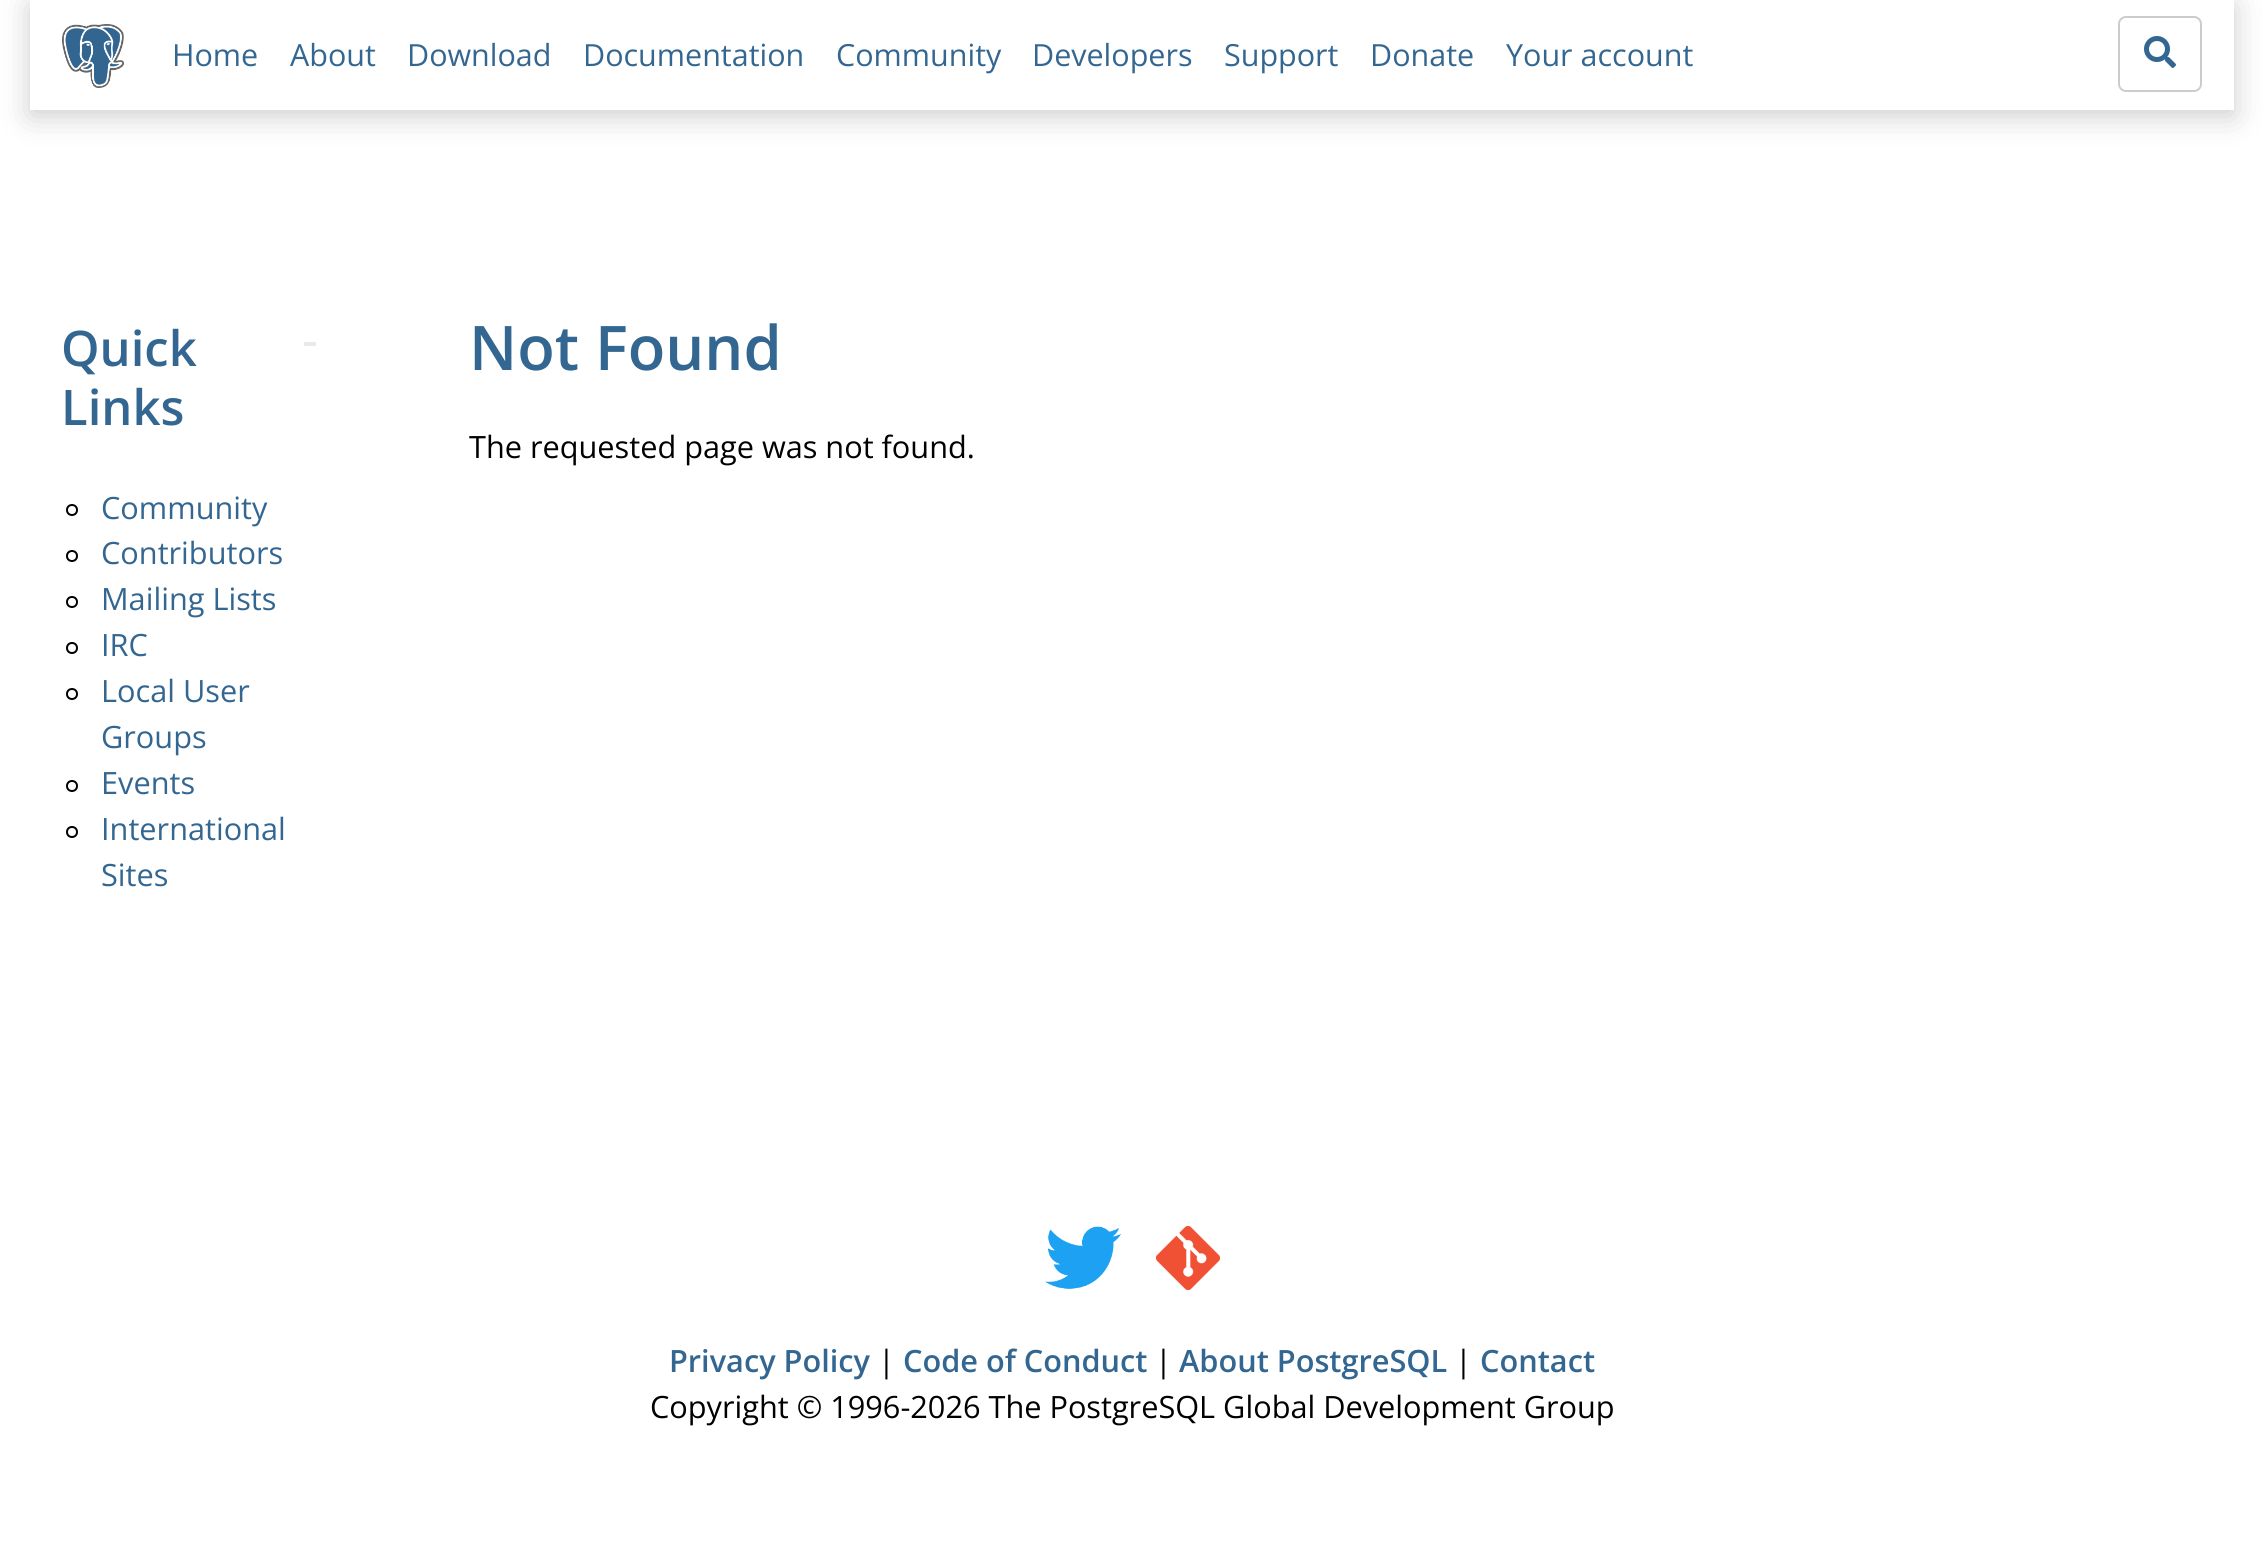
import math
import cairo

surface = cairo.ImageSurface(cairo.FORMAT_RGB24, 2263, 1559)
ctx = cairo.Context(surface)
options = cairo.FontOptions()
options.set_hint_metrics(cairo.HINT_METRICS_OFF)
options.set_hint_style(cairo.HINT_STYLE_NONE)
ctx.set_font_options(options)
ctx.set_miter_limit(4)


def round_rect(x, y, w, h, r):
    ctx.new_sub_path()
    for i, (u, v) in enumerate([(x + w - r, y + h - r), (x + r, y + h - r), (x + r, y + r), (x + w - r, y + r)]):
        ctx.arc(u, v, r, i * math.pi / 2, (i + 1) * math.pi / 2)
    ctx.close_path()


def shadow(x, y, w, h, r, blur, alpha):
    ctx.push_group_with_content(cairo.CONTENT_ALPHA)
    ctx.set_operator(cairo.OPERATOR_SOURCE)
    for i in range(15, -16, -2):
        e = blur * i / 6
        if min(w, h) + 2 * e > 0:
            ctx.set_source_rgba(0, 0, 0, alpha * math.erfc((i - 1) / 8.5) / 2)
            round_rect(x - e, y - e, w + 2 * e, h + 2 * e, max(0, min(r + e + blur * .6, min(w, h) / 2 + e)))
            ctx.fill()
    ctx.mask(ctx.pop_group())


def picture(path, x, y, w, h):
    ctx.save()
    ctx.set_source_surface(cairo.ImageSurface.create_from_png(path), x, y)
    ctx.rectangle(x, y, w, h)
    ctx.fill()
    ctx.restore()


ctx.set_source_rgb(1, 1, 1)
ctx.paint()
ctx.save()
ctx.set_fill_rule(cairo.FILL_RULE_EVEN_ODD)
ctx.new_path()
ctx.move_to(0, 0)
ctx.line_to(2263, 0)
ctx.line_to(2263, 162)
ctx.line_to(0, 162)
ctx.close_path()
ctx.move_to(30, 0)
ctx.line_to(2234, 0)
ctx.line_to(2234, 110)
ctx.line_to(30, 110)
ctx.close_path()
ctx.clip()
ctx.set_source_rgb(0, 0, 0)
shadow(30, 6, 2204, 110, 0, 15, 0.2)
ctx.restore()
picture("img1.png", 62, 24, 62, 64)
ctx.select_font_face("Open Sans")
ctx.set_font_size(30.5)
ctx.set_source_rgb(0.2, 0.404, 0.569)
ctx.move_to(172, 66)
ctx.show_text("Home")
ctx.move_to(290, 66)
ctx.show_text("About")
ctx.move_to(407, 66)
ctx.show_text("Download")
ctx.move_to(583, 66)
ctx.show_text("Documentation")
ctx.move_to(836, 66)
ctx.show_text("Community")
ctx.move_to(1032, 66)
ctx.show_text("Developers")
ctx.move_to(1224, 66)
ctx.show_text("Support")
ctx.move_to(1370, 66)
ctx.show_text("Donate")
ctx.move_to(1506, 66)
ctx.show_text("Your account")
round_rect(2119, 17, 82, 74, 7)
ctx.set_source_rgb(0.8, 0.8, 0.8)
ctx.stroke()
picture("img2.png", 2144, 36, 32, 32)
ctx.select_font_face("Open Sans SemiBold")
ctx.set_font_size(49)
ctx.set_source_rgb(0.2, 0.404, 0.569)
ctx.move_to(61, 366)
ctx.show_text("Quick")
ctx.set_source_rgb(0.906, 0.918, 0.91)
ctx.rectangle(304, 342, 12, 4)
ctx.fill()
ctx.set_source_rgb(0.2, 0.404, 0.569)
ctx.move_to(61, 425)
ctx.show_text("Links")
ctx.new_path()
ctx.arc(72, 510, 5, 0, 2 * math.pi)
ctx.set_source_rgb(0, 0, 0)
ctx.stroke()
ctx.select_font_face("Open Sans")
ctx.set_font_size(30.7)
ctx.set_source_rgb(0.2, 0.404, 0.569)
ctx.move_to(101, 519)
ctx.show_text("Community")
ctx.new_path()
ctx.arc(72, 556, 5, 0, 2 * math.pi)
ctx.set_source_rgb(0, 0, 0)
ctx.stroke()
ctx.set_source_rgb(0.2, 0.404, 0.569)
ctx.move_to(101, 564)
ctx.show_text("Contributors")
ctx.new_path()
ctx.arc(72, 602, 5, 0, 2 * math.pi)
ctx.set_source_rgb(0, 0, 0)
ctx.stroke()
ctx.set_source_rgb(0.2, 0.404, 0.569)
ctx.move_to(101, 610)
ctx.show_text("Mailing Lists")
ctx.new_path()
ctx.arc(72, 648, 5, 0, 2 * math.pi)
ctx.set_source_rgb(0, 0, 0)
ctx.stroke()
ctx.set_source_rgb(0.2, 0.404, 0.569)
ctx.move_to(101, 656)
ctx.show_text("IRC")
ctx.new_path()
ctx.arc(72, 694, 5, 0, 2 * math.pi)
ctx.set_source_rgb(0, 0, 0)
ctx.stroke()
ctx.set_source_rgb(0.2, 0.404, 0.569)
ctx.move_to(101, 702)
ctx.show_text("Local User")
ctx.move_to(101, 748)
ctx.show_text("Groups")
ctx.new_path()
ctx.arc(72, 786, 5, 0, 2 * math.pi)
ctx.set_source_rgb(0, 0, 0)
ctx.stroke()
ctx.set_source_rgb(0.2, 0.404, 0.569)
ctx.move_to(101, 794)
ctx.show_text("Events")
ctx.new_path()
ctx.arc(72, 832, 5, 0, 2 * math.pi)
ctx.set_source_rgb(0, 0, 0)
ctx.stroke()
ctx.set_source_rgb(0.2, 0.404, 0.569)
ctx.move_to(101, 840)
ctx.show_text("International")
ctx.move_to(101, 886)
ctx.show_text("Sites")
ctx.select_font_face("Open Sans SemiBold")
ctx.set_font_size(61.5)
ctx.move_to(469, 370)
ctx.show_text("Not Found")
ctx.select_font_face("Open Sans")
ctx.set_font_size(30.7)
ctx.set_source_rgb(0, 0, 0)
ctx.move_to(469, 458)
ctx.show_text("The requested page was not found.")
picture("img3.png", 1045, 1226, 77, 63)
picture("img4.png", 1156, 1226, 64, 64)
ctx.select_font_face("Open Sans SemiBold")
ctx.set_source_rgb(0.2, 0.404, 0.569)
ctx.move_to(669, 1372)
ctx.show_text("Privacy Policy")
ctx.select_font_face("Open Sans")
ctx.set_source_rgb(0, 0, 0)
ctx.move_to(878, 1372)
ctx.show_text("|")
ctx.select_font_face("Open Sans SemiBold")
ctx.set_source_rgb(0.2, 0.404, 0.569)
ctx.move_to(903, 1372)
ctx.show_text("Code of Conduct")
ctx.select_font_face("Open Sans")
ctx.set_source_rgb(0, 0, 0)
ctx.move_to(1155, 1372)
ctx.show_text("|")
ctx.select_font_face("Open Sans SemiBold")
ctx.set_source_rgb(0.2, 0.404, 0.569)
ctx.move_to(1179, 1372)
ctx.show_text("About PostgreSQL")
ctx.select_font_face("Open Sans")
ctx.set_source_rgb(0, 0, 0)
ctx.move_to(1455, 1372)
ctx.show_text("|")
ctx.select_font_face("Open Sans SemiBold")
ctx.set_source_rgb(0.2, 0.404, 0.569)
ctx.move_to(1480, 1372)
ctx.show_text("Contact")
ctx.select_font_face("Open Sans")
ctx.set_source_rgb(0, 0, 0)
ctx.move_to(650, 1418)
ctx.show_text("Copyright © 1996-2026 The PostgreSQL Global Development Group")
surface.write_to_png("page.png")
